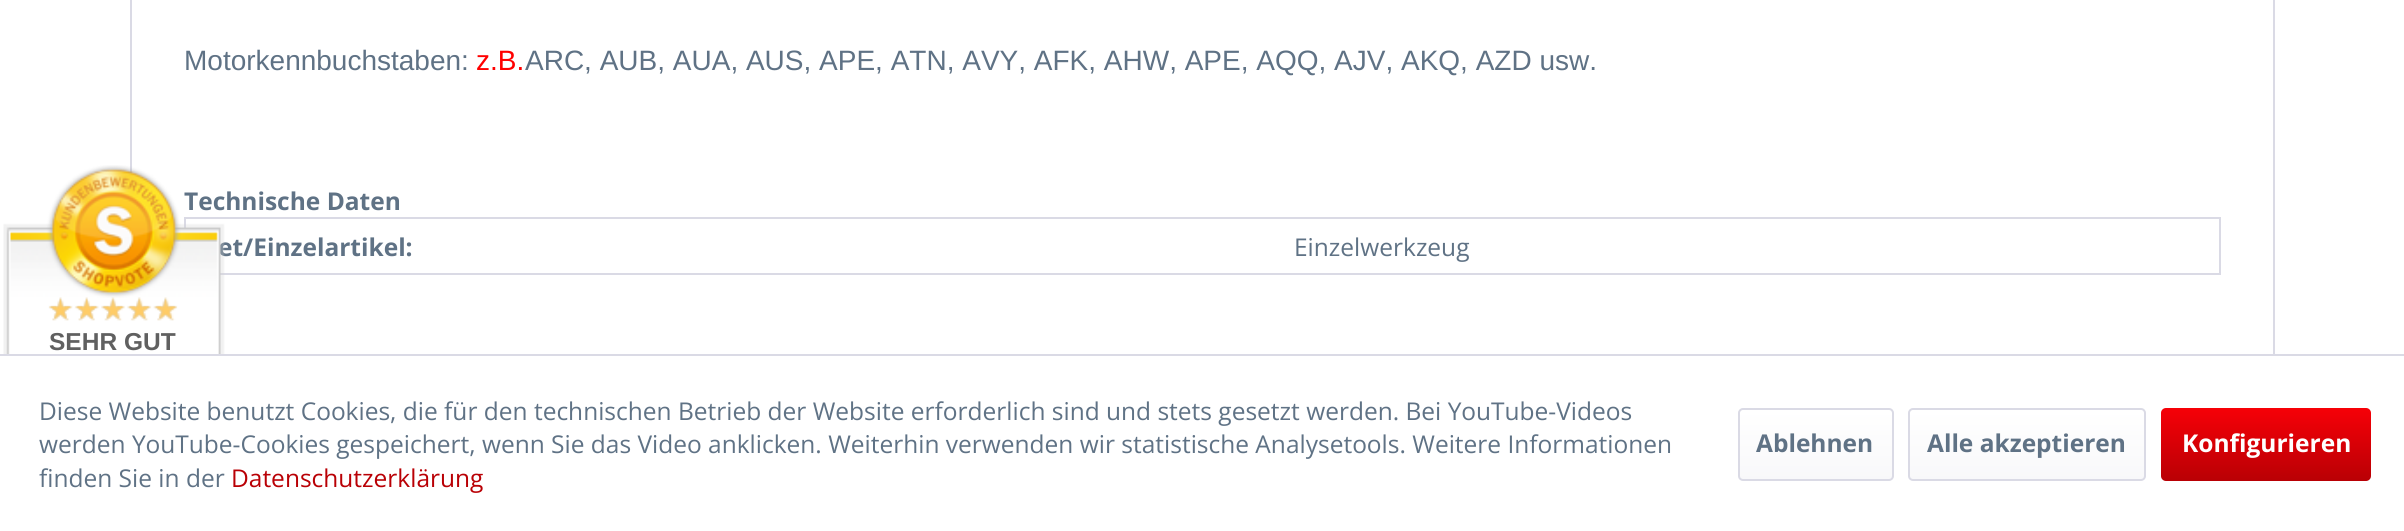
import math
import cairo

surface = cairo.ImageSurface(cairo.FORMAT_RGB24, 2404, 531)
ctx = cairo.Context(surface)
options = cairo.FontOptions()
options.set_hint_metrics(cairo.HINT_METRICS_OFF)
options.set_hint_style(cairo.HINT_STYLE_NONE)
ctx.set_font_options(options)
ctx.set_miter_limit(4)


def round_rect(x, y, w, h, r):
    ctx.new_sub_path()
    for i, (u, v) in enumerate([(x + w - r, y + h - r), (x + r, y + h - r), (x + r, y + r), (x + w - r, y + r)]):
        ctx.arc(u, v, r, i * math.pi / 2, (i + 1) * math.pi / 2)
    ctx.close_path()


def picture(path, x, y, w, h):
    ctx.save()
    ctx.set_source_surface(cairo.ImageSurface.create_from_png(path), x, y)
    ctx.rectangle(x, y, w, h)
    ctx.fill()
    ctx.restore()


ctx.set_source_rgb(1, 1, 1)
ctx.paint()
ctx.rectangle(131, -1, 2143, 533)
ctx.set_source_rgb(0.855, 0.855, 0.898)
ctx.stroke()
ctx.select_font_face("Liberation Sans")
ctx.set_font_size(28)
ctx.set_source_rgb(0.373, 0.447, 0.522)
ctx.move_to(184, 70)
ctx.show_text("Motorkennbuchstaben:")
ctx.set_source_rgb(1, 0, 0)
ctx.move_to(476, 70)
ctx.show_text("z.B.")
ctx.set_source_rgb(0.373, 0.447, 0.522)
ctx.move_to(525, 70)
ctx.show_text("ARC, AUB, AUA, AUS, APE, ATN, AVY, AFK, AHW, APE, AQQ, AJV, AKQ, AZD usw.")
ctx.select_font_face("Open Sans", cairo.FONT_SLANT_NORMAL, cairo.FONT_WEIGHT_BOLD)
ctx.set_font_size(24.5)
ctx.move_to(184, 210)
ctx.show_text("Technische Daten")
ctx.rectangle(185, 218, 2035, 56)
ctx.set_source_rgb(0.855, 0.855, 0.898)
ctx.stroke()
ctx.set_source_rgb(0.373, 0.447, 0.522)
ctx.move_to(218, 256)
ctx.show_text("et/Einzelartikel:")
ctx.select_font_face("Open Sans")
ctx.move_to(1294, 256)
ctx.show_text("Einzelwerkzeug")
picture("img1.png", 3, 165, 222, 189)
picture("img2.png", 49, 297, 128, 24)
ctx.select_font_face("Liberation Sans", cairo.FONT_SLANT_NORMAL, cairo.FONT_WEIGHT_BOLD)
ctx.set_source_rgb(0.376, 0.376, 0.376)
ctx.move_to(49, 350)
ctx.show_text("SEHR GUT")
ctx.set_source_rgb(1, 1, 1)
ctx.rectangle(130, 356, 2145, 175)
ctx.fill()
ctx.set_source_rgb(0.855, 0.855, 0.898)
ctx.rectangle(0, 354, 2404, 2)
ctx.fill()
ctx.select_font_face("Open Sans")
ctx.set_source_rgb(0.373, 0.447, 0.522)
ctx.move_to(39, 420)
ctx.show_text("Diese Website benutzt Cookies, die für den technischen Betrieb der Website erforderlich sind und stets gesetzt werden. Bei YouTube-Videos")
ctx.move_to(39, 453)
ctx.show_text("werden YouTube-Cookies gespeichert, wenn Sie das Video anklicken. Weiterhin verwenden wir statistische Analysetools. Weitere Informationen")
ctx.move_to(39, 487)
ctx.show_text("finden Sie in der")
ctx.set_source_rgb(0.725, 0, 0.02)
ctx.move_to(231, 487)
ctx.show_text("Datenschutzerklärung")
gradient = cairo.LinearGradient(1816, 410, 1816, 480)
gradient.add_color_stop_rgba(0, 1, 1, 1, 1)
gradient.add_color_stop_rgba(1, 0.973, 0.973, 0.98, 1)
ctx.set_source(gradient)
round_rect(1740, 410, 152, 70, 4)
ctx.fill()
round_rect(1739, 409, 154, 71, 4)
ctx.set_source_rgb(0.855, 0.855, 0.898)
ctx.stroke()
ctx.select_font_face("Open Sans", cairo.FONT_SLANT_NORMAL, cairo.FONT_WEIGHT_BOLD)
ctx.set_source_rgb(0.373, 0.447, 0.522)
ctx.move_to(1756, 452)
ctx.show_text("Ablehnen")
gradient = cairo.LinearGradient(2027, 410, 2027, 480)
gradient.add_color_stop_rgba(0, 1, 1, 1, 1)
gradient.add_color_stop_rgba(1, 0.973, 0.973, 0.98, 1)
ctx.set_source(gradient)
round_rect(1909, 410, 235, 70, 4)
ctx.fill()
round_rect(1909, 409, 236, 71, 4)
ctx.set_source_rgb(0.855, 0.855, 0.898)
ctx.stroke()
ctx.set_source_rgb(0.373, 0.447, 0.522)
ctx.move_to(1927, 452)
ctx.show_text("Alle akzeptieren")
gradient = cairo.LinearGradient(2266, 408, 2266, 481)
gradient.add_color_stop_rgba(0, 0.965, 0, 0.027, 1)
gradient.add_color_stop_rgba(1, 0.725, 0, 0.02, 1)
ctx.set_source(gradient)
round_rect(2161, 408, 210, 73, 5)
ctx.fill()
ctx.set_source_rgb(1, 1, 1)
ctx.move_to(2182, 452)
ctx.show_text("Konfigurieren")
surface.write_to_png("page.png")
